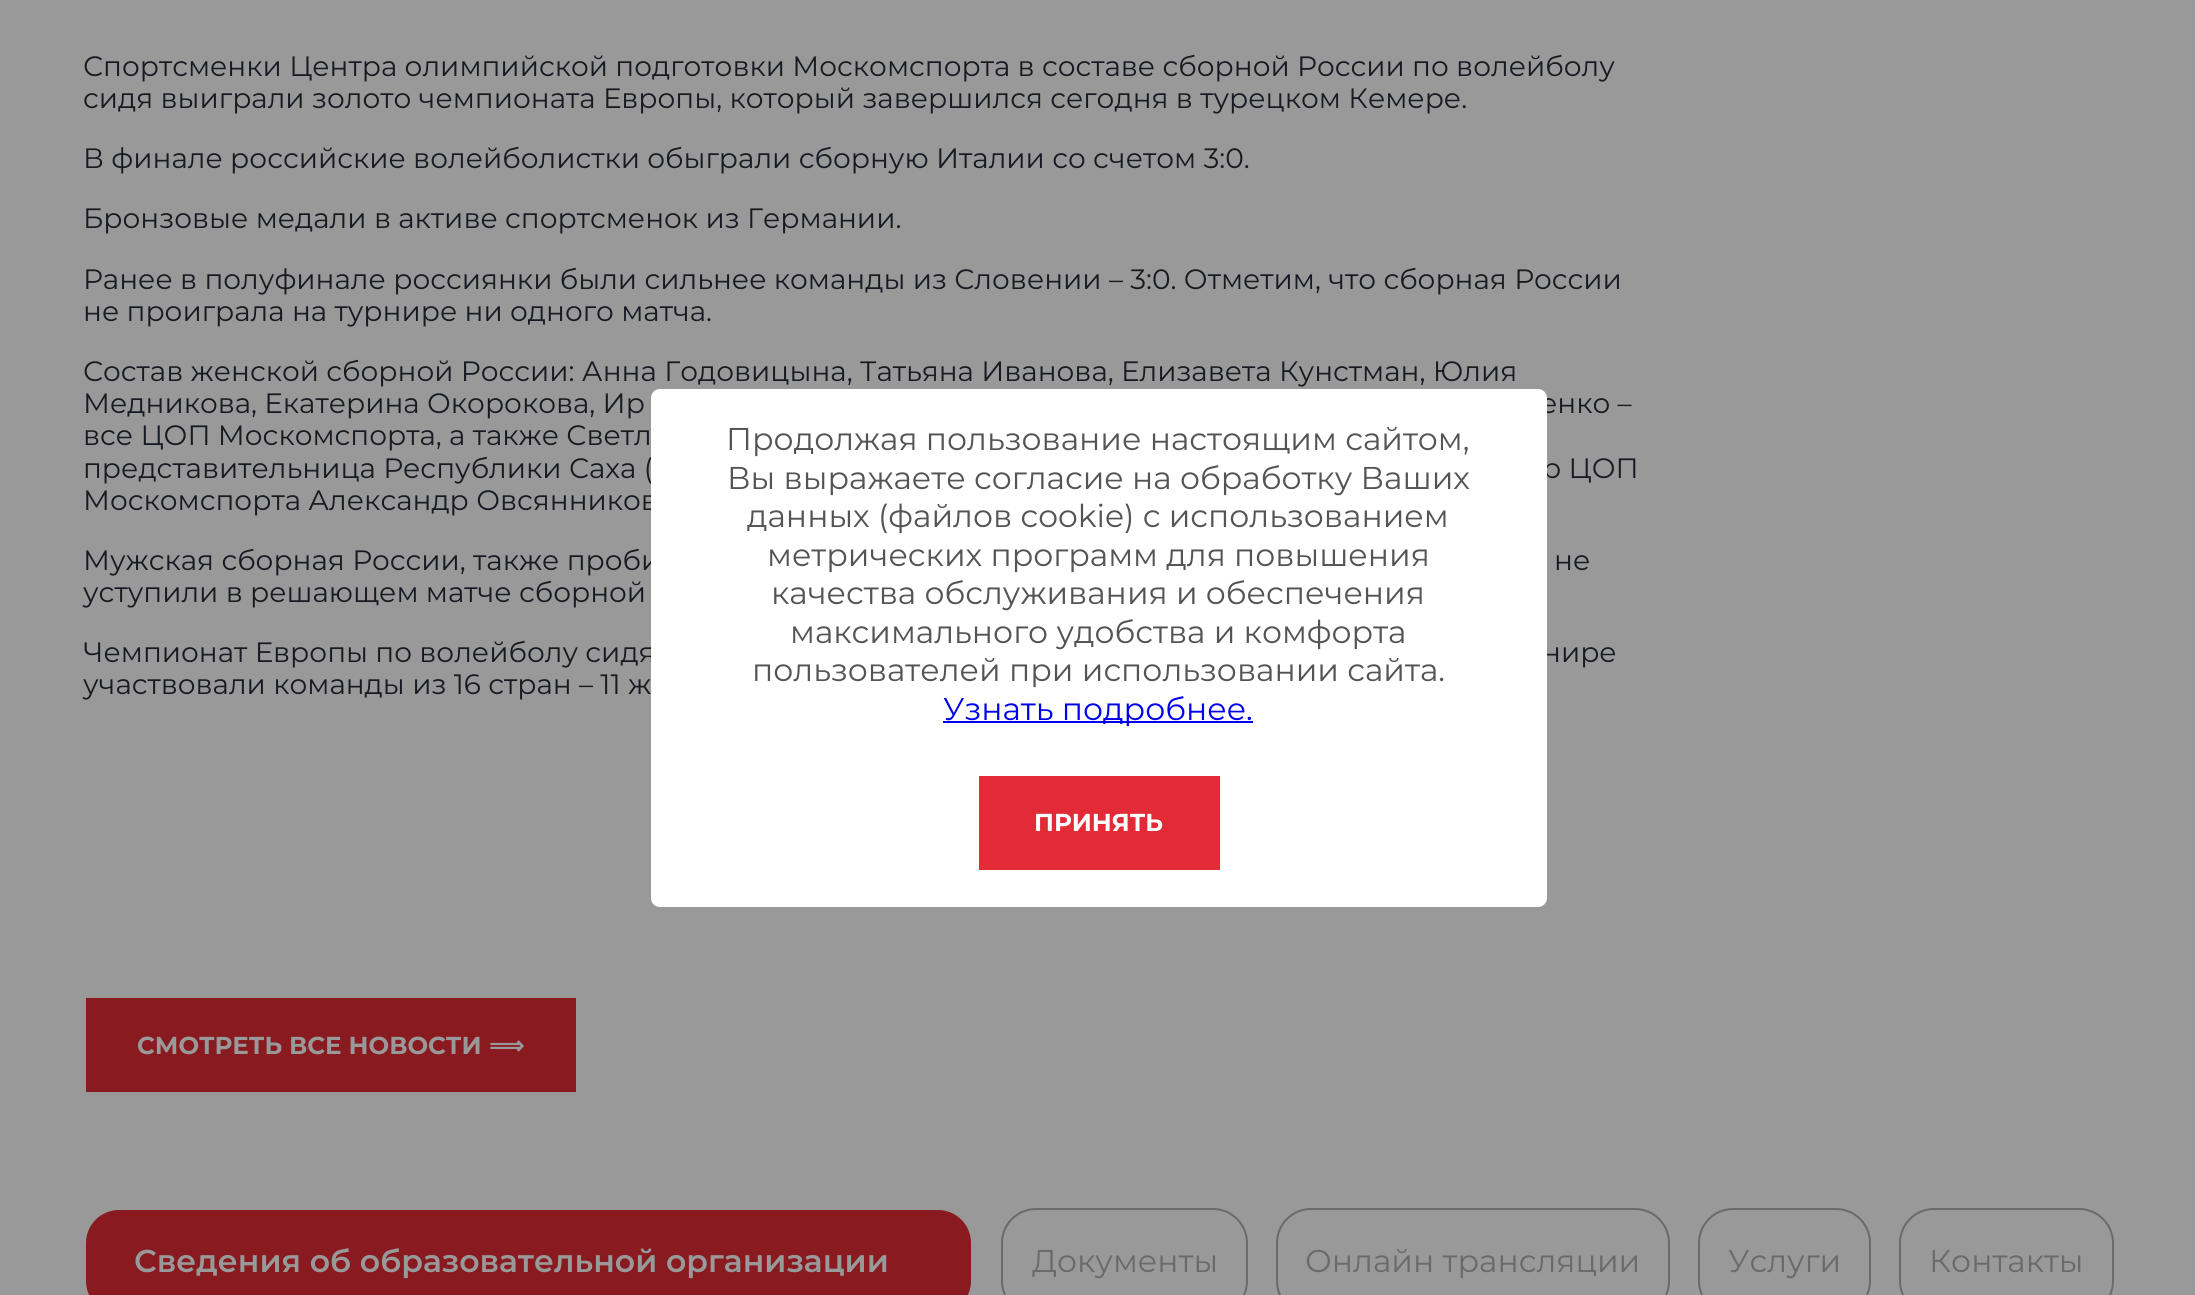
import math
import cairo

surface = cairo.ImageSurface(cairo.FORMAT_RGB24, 2195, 1295)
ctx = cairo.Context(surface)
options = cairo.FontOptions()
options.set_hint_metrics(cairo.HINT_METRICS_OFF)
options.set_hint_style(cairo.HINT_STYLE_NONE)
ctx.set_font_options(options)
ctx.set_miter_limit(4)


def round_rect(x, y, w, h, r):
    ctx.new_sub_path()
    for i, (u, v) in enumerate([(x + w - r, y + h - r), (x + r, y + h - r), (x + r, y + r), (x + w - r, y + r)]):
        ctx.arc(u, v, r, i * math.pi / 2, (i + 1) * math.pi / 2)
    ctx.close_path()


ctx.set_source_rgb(0.6, 0.6, 0.6)
ctx.paint()
ctx.select_font_face("Montserrat")
ctx.set_font_size(28)
ctx.set_source_rgb(0.09, 0.102, 0.129)
ctx.move_to(83, 76)
ctx.show_text("Спортсменки Центра олимпийской подготовки Москомспорта в составе сборной России по волейболу")
ctx.move_to(83, 108)
ctx.show_text("сидя выиграли золото чемпионата Европы, который завершился сегодня в турецком Кемере.")
ctx.move_to(83, 168)
ctx.show_text("В финале российские волейболистки обыграли сборную Италии со счетом 3:0.")
ctx.move_to(83, 228)
ctx.show_text("Бронзовые медали в активе спортсменок из Германии.")
ctx.move_to(83, 289)
ctx.show_text("Ранее в полуфинале россиянки были сильнее команды из Словении – 3:0. Отметим, что сборная России")
ctx.move_to(83, 321)
ctx.show_text("не проиграла на турнире ни одного матча.")
ctx.move_to(83, 381)
ctx.show_text("Состав женской сборной России: Анна Годовицына, Татьяна Иванова, Елизавета Кунстман, Юлия")
ctx.move_to(83, 413)
ctx.show_text("Медникова, Екатерина Окорокова, Ир")
ctx.move_to(1540, 413)
ctx.show_text("енко –")
ctx.move_to(83, 445)
ctx.show_text("все ЦОП Москомспорта, а также Светл")
ctx.move_to(83, 478)
ctx.show_text("представительница Республики Саха (")
ctx.move_to(1542, 478)
ctx.show_text("р ЦОП")
ctx.move_to(83, 510)
ctx.show_text("Москомспорта Александр Овсянников")
ctx.move_to(83, 570)
ctx.show_text("Мужская сборная России, также проби")
ctx.move_to(1554, 570)
ctx.show_text("не")
ctx.move_to(83, 602)
ctx.show_text("уступили в решающем матче сборной")
ctx.move_to(83, 662)
ctx.show_text("Чемпионат Европы по волейболу сидя")
ctx.move_to(1542, 662)
ctx.show_text("нире")
ctx.move_to(83, 694)
ctx.show_text("участвовали команды из 16 стран – 11 ж")
ctx.set_source_rgb(0.533, 0.102, 0.125)
ctx.rectangle(86, 998, 490, 94)
ctx.fill()
ctx.select_font_face("Montserrat", cairo.FONT_SLANT_NORMAL, cairo.FONT_WEIGHT_BOLD)
ctx.set_font_size(24.5)
ctx.set_source_rgb(0.6, 0.6, 0.6)
ctx.move_to(137, 1054)
ctx.show_text("СМОТРЕТЬ ВСЕ НОВОСТИ")
ctx.select_font_face("DejaVu Sans", cairo.FONT_SLANT_NORMAL, cairo.FONT_WEIGHT_BOLD)
ctx.move_to(489, 1054)
ctx.show_text("⟹")
ctx.set_source_rgb(0.533, 0.102, 0.125)
round_rect(85, 1209, 887, 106, 34)
ctx.fill_preserve()
ctx.set_source_rgb(0.6, 0.6, 0.6)
ctx.stroke()
ctx.select_font_face("Montserrat SemiBold")
ctx.set_font_size(31.5)
ctx.move_to(134, 1272)
ctx.show_text("Сведения об образовательной организации")
round_rect(1002, 1209, 245, 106, 34)
ctx.set_source_rgb(0.416, 0.416, 0.416)
ctx.stroke()
ctx.select_font_face("Montserrat")
ctx.move_to(1032, 1272)
ctx.show_text("Документы")
round_rect(1277, 1209, 392, 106, 34)
ctx.stroke()
ctx.move_to(1305, 1272)
ctx.show_text("Онлайн трансляции")
round_rect(1699, 1209, 171, 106, 34)
ctx.stroke()
ctx.move_to(1728, 1272)
ctx.show_text("Услуги")
round_rect(1900, 1209, 213, 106, 34)
ctx.stroke()
ctx.move_to(1929, 1272)
ctx.show_text("Контакты")
ctx.set_source_rgb(1, 1, 1)
round_rect(651, 389, 896, 518, 9)
ctx.fill()
ctx.set_source_rgb(0.329, 0.329, 0.329)
ctx.move_to(726, 450)
ctx.show_text("Продолжая пользование настоящим сайтом,")
ctx.move_to(727, 489)
ctx.show_text("Вы выражаете согласие на обработку Ваших")
ctx.move_to(747, 527)
ctx.show_text("данных (файлов cookie) с использованием")
ctx.move_to(767, 566)
ctx.show_text("метрических программ для повышения")
ctx.move_to(771, 604)
ctx.show_text("качества обслуживания и обеспечения")
ctx.move_to(790, 643)
ctx.show_text("максимального удобства и комфорта")
ctx.move_to(752, 681)
ctx.show_text("пользователей при использовании сайта.")
ctx.set_source_rgb(0, 0, 0.933)
ctx.rectangle(943, 721, 310, 2)
ctx.fill()
ctx.move_to(943, 720)
ctx.show_text("Узнать подробнее.")
ctx.set_source_rgb(0.886, 0.169, 0.212)
ctx.rectangle(979, 776, 241, 94)
ctx.fill()
ctx.select_font_face("Montserrat", cairo.FONT_SLANT_NORMAL, cairo.FONT_WEIGHT_BOLD)
ctx.set_font_size(24.5)
ctx.set_source_rgb(1, 1, 1)
ctx.move_to(1034, 831)
ctx.show_text("ПРИНЯТЬ")
surface.write_to_png("page.png")
